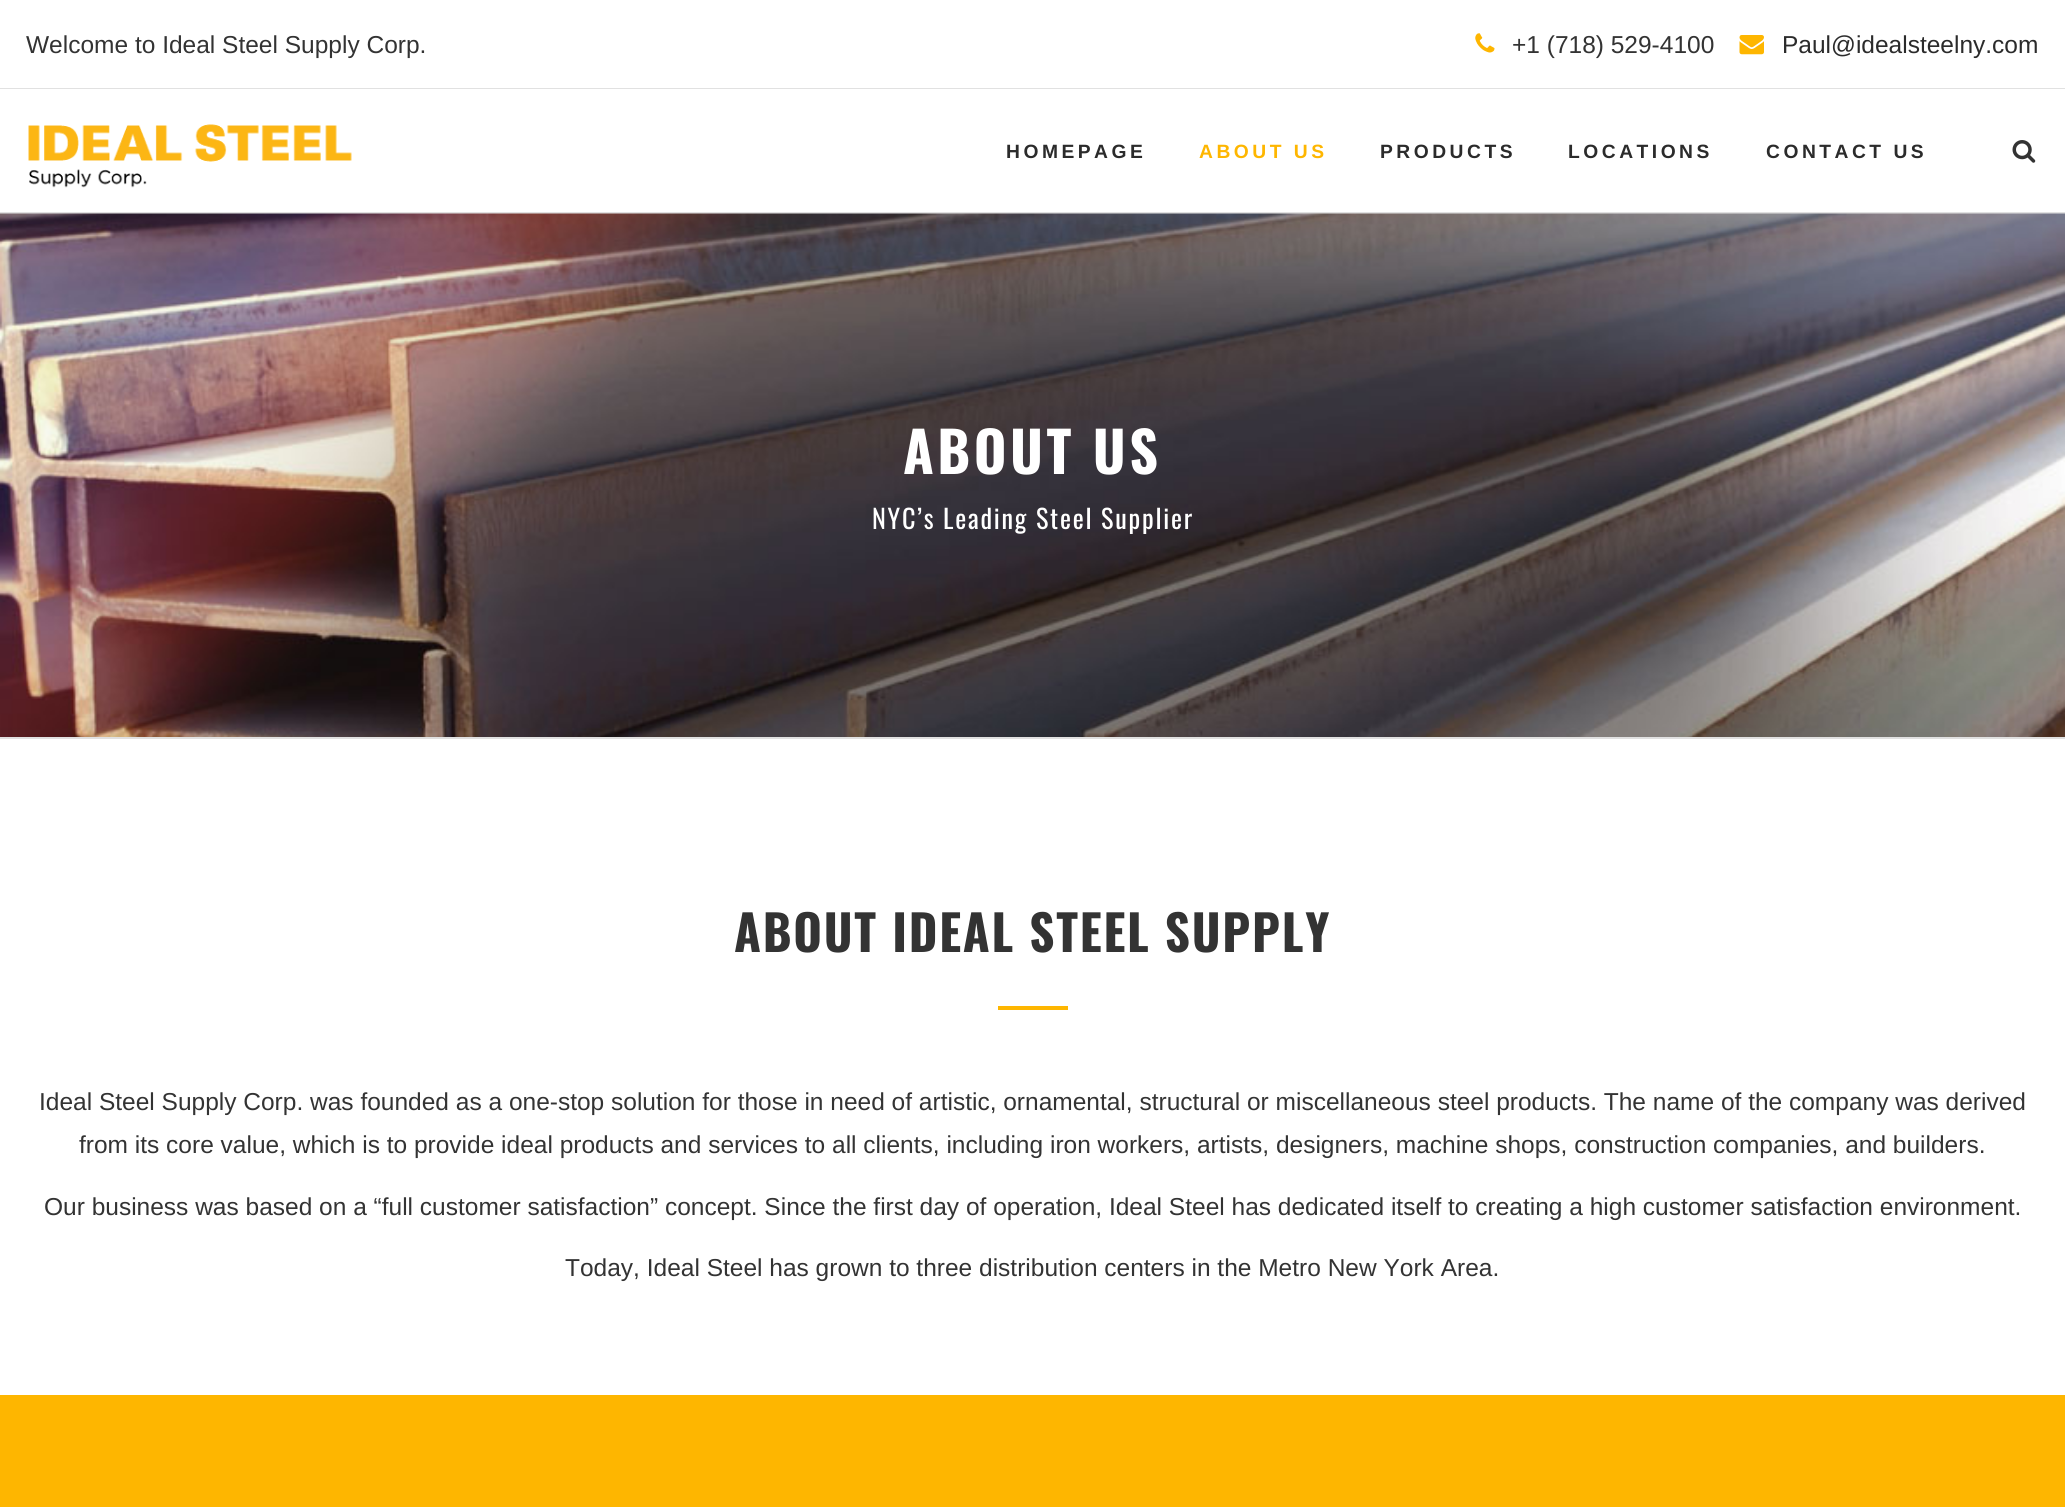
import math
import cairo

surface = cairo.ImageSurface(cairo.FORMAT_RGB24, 2065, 1507)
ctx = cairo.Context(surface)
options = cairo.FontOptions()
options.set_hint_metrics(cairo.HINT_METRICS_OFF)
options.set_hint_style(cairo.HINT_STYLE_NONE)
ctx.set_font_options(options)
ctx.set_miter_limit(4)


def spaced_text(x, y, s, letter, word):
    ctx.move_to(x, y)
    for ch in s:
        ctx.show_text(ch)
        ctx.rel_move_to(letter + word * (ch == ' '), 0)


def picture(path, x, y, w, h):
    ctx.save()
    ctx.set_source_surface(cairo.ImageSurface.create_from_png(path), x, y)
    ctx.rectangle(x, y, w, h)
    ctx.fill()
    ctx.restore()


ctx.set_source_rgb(1, 1, 1)
ctx.paint()
ctx.set_source_rgb(0.882, 0.882, 0.882)
ctx.rectangle(0, 88, 2065, 1)
ctx.fill()
ctx.select_font_face("Arimo")
ctx.set_font_size(24.5)
ctx.set_source_rgb(0.2, 0.2, 0.2)
ctx.move_to(26, 53)
ctx.show_text("Welcome to Ideal Steel Supply Corp.")
picture("img1.png", 1475, 33, 20, 20)
ctx.move_to(1512, 53)
ctx.show_text("+1 (718) 529-4100")
picture("img2.png", 1739, 35, 25, 20)
ctx.set_source_rgb(0.169, 0.169, 0.169)
ctx.move_to(1782, 53)
ctx.show_text("Paul@idealsteelny.com")
picture("img3.png", 28, 124, 324, 64)
ctx.select_font_face("Arimo", cairo.FONT_SLANT_NORMAL, cairo.FONT_WEIGHT_BOLD)
ctx.set_font_size(19.25)
spaced_text(1006, 158, "HOMEPAGE", 3.5, 0)
ctx.set_source_rgb(0.996, 0.714, 0)
spaced_text(1199, 158, "ABOUT US", 3.5, 0)
ctx.set_source_rgb(0.169, 0.169, 0.169)
spaced_text(1380, 158, "PRODUCTS", 3.5, 0)
spaced_text(1568, 158, "LOCATIONS", 3.5, 0)
spaced_text(1766, 158, "CONTACT US", 3.5, 0)
picture("img4.png", 2012, 140, 24, 23)
ctx.set_source_rgb(0.882, 0.882, 0.882)
ctx.rectangle(0, 212, 2065, 2)
ctx.fill()
picture("img5.png", 0, 213, 2065, 524)
ctx.rectangle(0, 737, 2065, 2)
ctx.fill()
ctx.select_font_face("Oswald", cairo.FONT_SLANT_NORMAL, cairo.FONT_WEIGHT_BOLD)
ctx.set_font_size(56)
ctx.set_source_rgb(1, 1, 1)
spaced_text(903, 474, "ABOUT US", 3.5, 0)
ctx.select_font_face("Oswald")
ctx.set_font_size(26.25)
spaced_text(872, 529, "NYC’s Leading Steel Supplier", 1.75, 0)
ctx.select_font_face("Oswald", cairo.FONT_SLANT_NORMAL, cairo.FONT_WEIGHT_BOLD)
ctx.set_font_size(49)
ctx.set_source_rgb(0.2, 0.2, 0.2)
spaced_text(734, 952, "ABOUT IDEAL STEEL SUPPLY", 1.75, 0)
ctx.set_source_rgb(0.996, 0.714, 0)
ctx.rectangle(998, 1006, 70, 4)
ctx.fill()
ctx.select_font_face("Arimo")
ctx.set_font_size(24.5)
ctx.set_source_rgb(0.2, 0.2, 0.2)
ctx.move_to(39, 1110)
ctx.show_text("Ideal Steel Supply Corp. was founded as a one-stop solution for those in need of artistic, ornamental, structural or miscellaneous steel products. The name of the company was derived")
ctx.move_to(79, 1153)
ctx.show_text("from its core value, which is to provide ideal products and services to all clients, including iron workers, artists, designers, machine shops, construction companies, and builders.")
ctx.move_to(44, 1215)
ctx.show_text("Our business was based on a “full customer satisfaction” concept. Since the first day of operation, Ideal Steel has dedicated itself to creating a high customer satisfaction environment.")
ctx.move_to(565, 1276)
ctx.show_text("Today, Ideal Steel has grown to three distribution centers in the Metro New York Area.")
ctx.set_source_rgb(0.996, 0.714, 0)
ctx.rectangle(0, 1395, 2065, 112)
ctx.fill()
surface.write_to_png("page.png")
